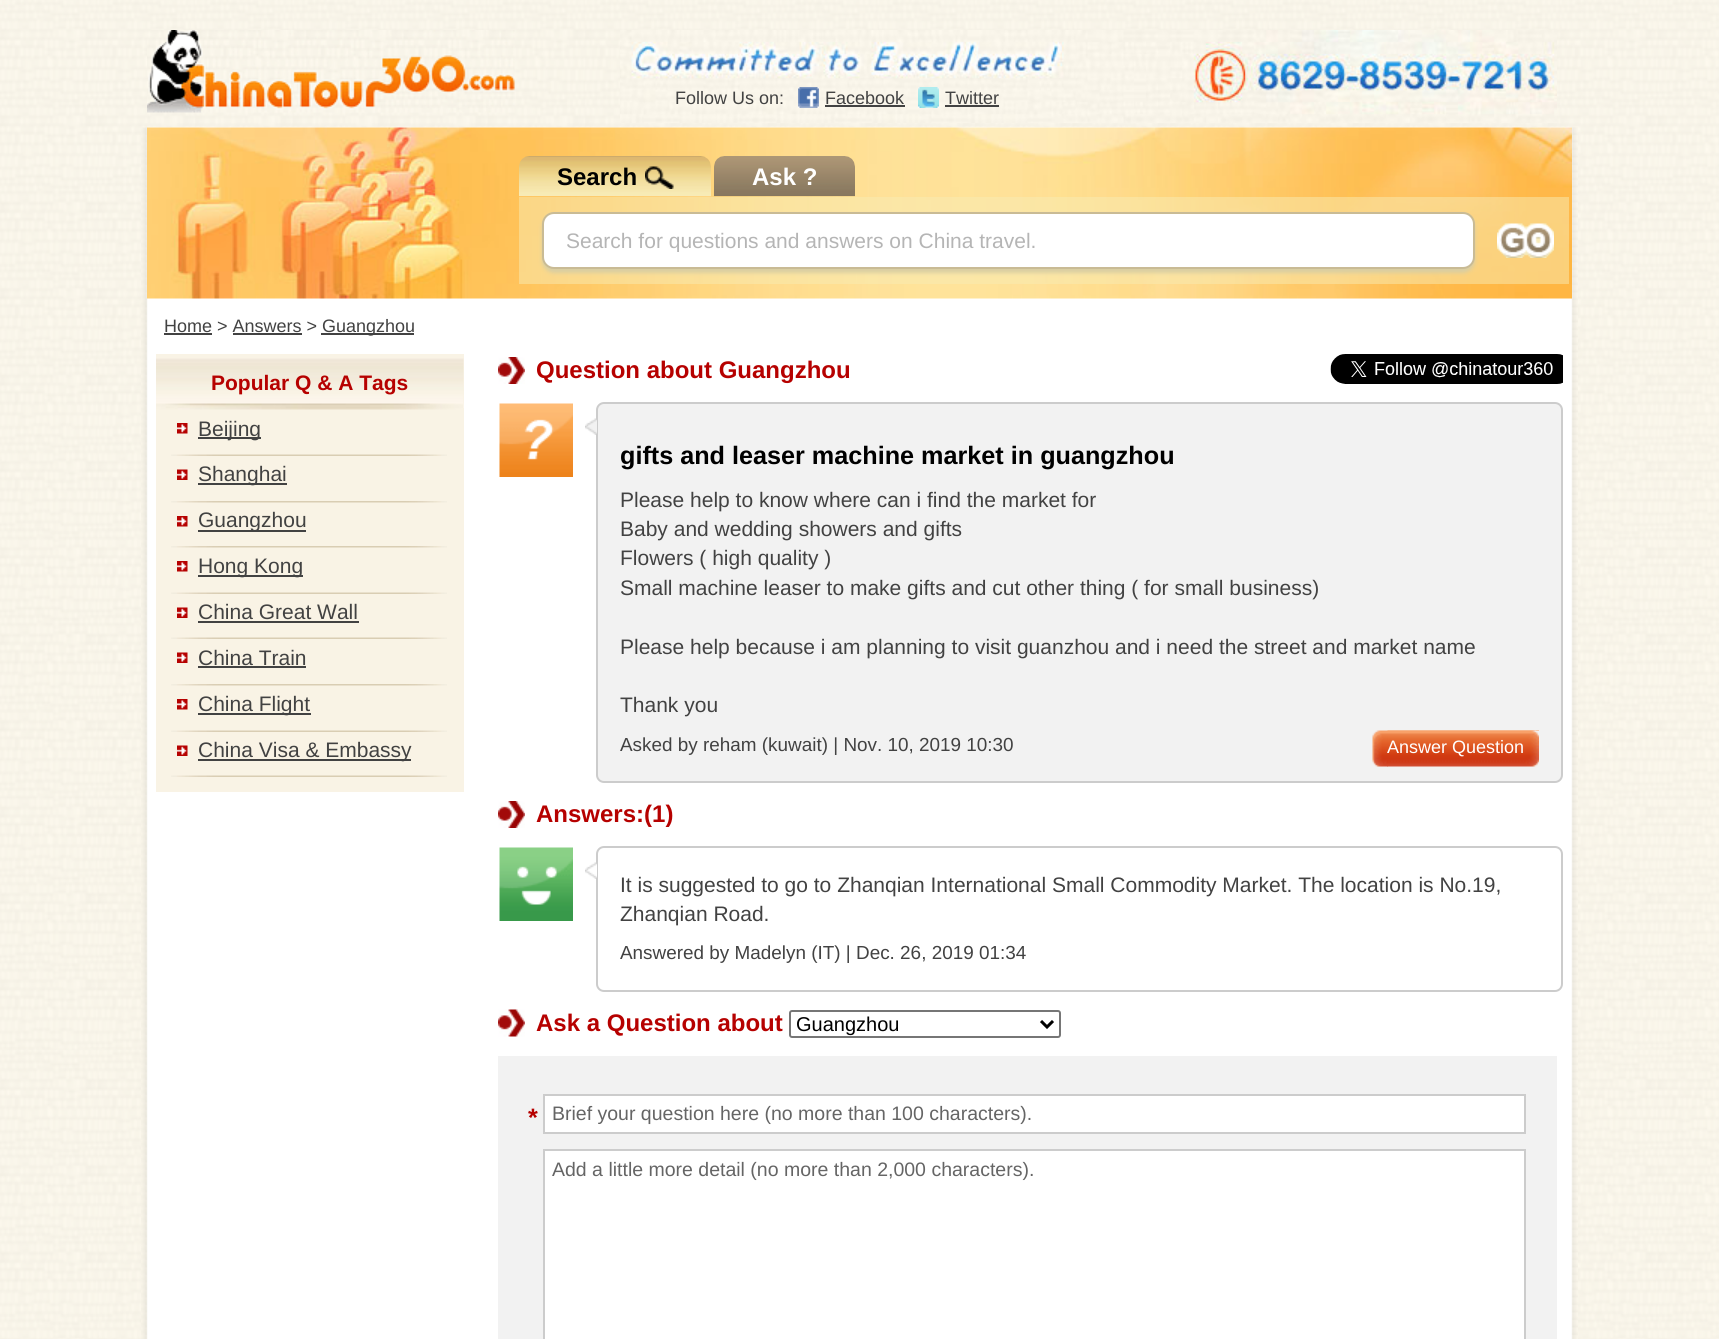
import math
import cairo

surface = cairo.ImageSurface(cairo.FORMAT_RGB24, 1719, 1339)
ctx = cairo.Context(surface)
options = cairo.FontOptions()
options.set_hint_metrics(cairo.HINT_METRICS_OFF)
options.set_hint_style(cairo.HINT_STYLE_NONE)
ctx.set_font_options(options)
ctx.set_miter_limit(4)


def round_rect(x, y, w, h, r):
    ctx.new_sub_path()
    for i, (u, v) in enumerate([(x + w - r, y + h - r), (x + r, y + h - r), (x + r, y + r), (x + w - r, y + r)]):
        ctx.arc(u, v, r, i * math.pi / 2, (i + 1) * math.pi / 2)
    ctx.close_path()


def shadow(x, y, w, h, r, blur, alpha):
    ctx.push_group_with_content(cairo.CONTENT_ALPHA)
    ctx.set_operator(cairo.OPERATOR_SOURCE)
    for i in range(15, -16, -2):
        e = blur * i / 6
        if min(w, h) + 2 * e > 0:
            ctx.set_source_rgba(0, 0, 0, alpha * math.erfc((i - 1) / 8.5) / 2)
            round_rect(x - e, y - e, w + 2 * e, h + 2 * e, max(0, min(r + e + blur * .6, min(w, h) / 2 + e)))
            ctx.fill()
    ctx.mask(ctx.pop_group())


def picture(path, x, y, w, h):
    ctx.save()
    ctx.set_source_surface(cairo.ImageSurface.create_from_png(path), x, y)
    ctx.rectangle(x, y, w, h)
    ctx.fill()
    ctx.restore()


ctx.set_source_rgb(1, 1, 1)
ctx.paint()
picture("img1.png", 0, 0, 1719, 1339)
picture("img2.png", 147, 30, 368, 83)
picture("img3.png", 620, 30, 514, 93)
picture("img4.png", 1134, 30, 423, 93)
ctx.select_font_face("Liberation Sans")
ctx.set_font_size(18)
ctx.set_source_rgb(0.259, 0.259, 0.259)
ctx.move_to(675, 104)
ctx.show_text("Follow Us on:")
picture("img5.png", 798, 87, 21, 21)
ctx.move_to(825, 104)
ctx.show_text("Facebook")
ctx.rectangle(825, 105, 80, 2)
ctx.fill()
picture("img6.png", 918, 87, 21, 21)
ctx.move_to(945, 104)
ctx.show_text("Twitter")
ctx.rectangle(945, 105, 54, 2)
ctx.fill()
picture("img7.png", 141, 127, 1437, 1212)
picture("img8.png", 147, 127, 1425, 172)
picture("img9.png", 519, 156, 192, 41)
ctx.select_font_face("Liberation Sans", cairo.FONT_SLANT_NORMAL, cairo.FONT_WEIGHT_BOLD)
ctx.set_font_size(24)
ctx.set_source_rgb(0, 0, 0)
ctx.move_to(557, 185)
ctx.show_text("Search")
picture("img10.png", 645, 166, 29, 23)
picture("img11.png", 714, 156, 141, 41)
ctx.set_source_rgb(1, 1, 1)
ctx.move_to(752, 185)
ctx.show_text("Ask ?")
ctx.set_source_rgba(0.969, 0.922, 0.71, 0.5)
ctx.rectangle(519, 197, 1050, 87)
ctx.fill()
ctx.set_source_rgb(0.851, 0.808, 0.635)
shadow(542, 216, 933, 57, 12, 2, 1)
ctx.set_source_rgb(1, 1, 1)
round_rect(543, 213, 931, 55, 11)
ctx.fill_preserve()
ctx.set_source_rgb(0.788, 0.733, 0.584)
ctx.stroke()
ctx.save()
ctx.rectangle(566, 228, 885, 24)
ctx.clip()
ctx.select_font_face("Liberation Sans")
ctx.set_font_size(21)
ctx.set_source_rgb(0.71, 0.71, 0.71)
ctx.move_to(566, 248)
ctx.show_text("Search for questions and answers on China travel.")
ctx.restore()
picture("img12.png", 1497, 223, 57, 35)
ctx.select_font_face("Liberation Sans")
ctx.set_font_size(18)
ctx.set_source_rgb(0.259, 0.259, 0.259)
ctx.move_to(164, 332)
ctx.show_text("Home > Answers >")
ctx.rectangle(164, 333, 48, 2)
ctx.fill()
ctx.rectangle(321, 333, 93, 2)
ctx.fill()
ctx.move_to(322, 332)
ctx.show_text("Guangzhou")
ctx.rectangle(233, 333, 69, 2)
ctx.fill()
ctx.set_source_rgb(0.973, 0.953, 0.898)
ctx.rectangle(156, 354, 308, 438)
ctx.fill()
picture("img13.png", 156, 358, 308, 50)
picture("img14.png", 156, 403, 307, 7)
ctx.select_font_face("Liberation Sans", cairo.FONT_SLANT_NORMAL, cairo.FONT_WEIGHT_BOLD)
ctx.set_font_size(21)
ctx.set_source_rgb(0.714, 0.004, 0)
ctx.move_to(211, 390)
ctx.show_text("Popular Q & A Tags")
picture("img15.png", 171, 454, 276, 2)
picture("img16.png", 177, 423, 11, 11)
ctx.set_source_rgb(0.259, 0.259, 0.259)
ctx.rectangle(198, 437, 63, 2)
ctx.fill()
ctx.select_font_face("Liberation Sans")
ctx.move_to(198, 436)
ctx.show_text("Beijing")
picture("img17.png", 171, 501, 276, 2)
picture("img18.png", 177, 469, 11, 11)
ctx.rectangle(198, 483, 89, 2)
ctx.fill()
ctx.move_to(198, 481)
ctx.show_text("Shanghai")
picture("img17.png", 171, 546, 276, 2)
picture("img16.png", 177, 516, 11, 11)
ctx.rectangle(198, 530, 108, 2)
ctx.fill()
ctx.move_to(198, 527)
ctx.show_text("Guangzhou")
picture("img15.png", 171, 592, 276, 2)
picture("img16.png", 177, 561, 11, 11)
ctx.rectangle(198, 575, 105, 2)
ctx.fill()
ctx.move_to(198, 573)
ctx.show_text("Hong Kong")
picture("img15.png", 171, 637, 276, 2)
picture("img18.png", 177, 607, 11, 11)
ctx.move_to(198, 619)
ctx.show_text("China Great Wall")
ctx.rectangle(198, 621, 161, 2)
ctx.fill()
picture("img17.png", 171, 684, 276, 2)
picture("img18.png", 177, 652, 11, 11)
ctx.move_to(198, 665)
ctx.show_text("China Train")
ctx.rectangle(198, 666, 108, 2)
ctx.fill()
picture("img15.png", 171, 730, 276, 2)
picture("img16.png", 177, 699, 11, 11)
ctx.rectangle(198, 713, 113, 2)
ctx.fill()
ctx.move_to(198, 711)
ctx.show_text("China Flight")
picture("img15.png", 171, 775, 276, 2)
picture("img18.png", 177, 745, 11, 11)
ctx.rectangle(198, 759, 213, 2)
ctx.fill()
ctx.move_to(198, 757)
ctx.show_text("China Visa & Embassy")
picture("img19.png", 498, 357, 27, 27)
ctx.select_font_face("Liberation Sans", cairo.FONT_SLANT_NORMAL, cairo.FONT_WEIGHT_BOLD)
ctx.set_font_size(24)
ctx.set_source_rgb(0.714, 0.004, 0)
ctx.move_to(536, 378)
ctx.show_text("Question about Guangzhou")
picture("img20.png", 1330, 354, 233, 30)
ctx.set_source_rgb(0.949, 0.949, 0.949)
round_rect(597, 403, 965, 379, 7)
ctx.fill_preserve()
ctx.set_source_rgb(0.8, 0.8, 0.8)
ctx.stroke()
picture("img21.png", 499, 403, 74, 74)
picture("img22.png", 585, 418, 12, 17)
ctx.set_font_size(25.2)
ctx.set_source_rgb(0, 0, 0)
ctx.move_to(620, 464)
ctx.show_text("gifts and leaser machine market in guangzhou")
ctx.select_font_face("Liberation Sans")
ctx.set_font_size(21)
ctx.set_source_rgb(0.259, 0.259, 0.259)
ctx.move_to(620, 507)
ctx.show_text("Please help to know where can i find the market for")
ctx.move_to(620, 536)
ctx.show_text("Baby and wedding showers and gifts")
ctx.move_to(620, 565)
ctx.show_text("Flowers ( high quality )")
ctx.move_to(620, 595)
ctx.show_text("Small machine leaser to make gifts and cut other thing ( for small business)")
ctx.move_to(620, 654)
ctx.show_text("Please help because i am planning to visit guanzhou and i need the street and market name")
ctx.move_to(620, 712)
ctx.show_text("Thank you")
ctx.set_font_size(18.9)
ctx.move_to(620, 751)
ctx.show_text("Asked by reham (kuwait) | Nov. 10, 2019 10:30")
picture("img23.png", 1372, 730, 167, 37)
ctx.set_source_rgb(0.949, 0.949, 0.949)
ctx.rectangle(1388, 731, 151, 36)
ctx.fill()
picture("img24.png", 1387, 730, 152, 37)
ctx.set_font_size(18)
ctx.set_source_rgb(1, 1, 1)
ctx.move_to(1387, 753)
ctx.show_text("Answer Question")
picture("img19.png", 498, 801, 27, 27)
ctx.select_font_face("Liberation Sans", cairo.FONT_SLANT_NORMAL, cairo.FONT_WEIGHT_BOLD)
ctx.set_font_size(24)
ctx.set_source_rgb(0.714, 0.004, 0)
ctx.move_to(536, 822)
ctx.show_text("Answers:(1)")
round_rect(597, 847, 965, 144, 7)
ctx.set_source_rgb(0.8, 0.8, 0.8)
ctx.stroke()
picture("img25.png", 499, 847, 74, 74)
picture("img26.png", 585, 862, 12, 17)
ctx.select_font_face("Liberation Sans")
ctx.set_font_size(21)
ctx.set_source_rgb(0.259, 0.259, 0.259)
ctx.move_to(620, 892)
ctx.show_text("It is suggested to go to Zhanqian International Small Commodity Market. The location is No.19,")
ctx.move_to(620, 921)
ctx.show_text("Zhanqian Road.")
ctx.set_font_size(18.9)
ctx.move_to(620, 959)
ctx.show_text("Answered by Madelyn (IT) | Dec. 26, 2019 01:34")
picture("img27.png", 498, 1009, 27, 28)
ctx.select_font_face("Liberation Sans", cairo.FONT_SLANT_NORMAL, cairo.FONT_WEIGHT_BOLD)
ctx.set_font_size(24)
ctx.set_source_rgb(0.714, 0.004, 0)
ctx.move_to(536, 1031)
ctx.show_text("Ask a Question about")
round_rect(790, 1011, 270, 26, 2)
ctx.set_source_rgb(0.463, 0.463, 0.463)
ctx.stroke()
ctx.new_path()
ctx.move_to(1041, 1021)
ctx.line_to(1047, 1027)
ctx.line_to(1053, 1021)
ctx.set_source_rgb(0, 0, 0)
ctx.set_line_width(3)
ctx.stroke()
ctx.select_font_face("Liberation Sans")
ctx.set_font_size(20)
ctx.move_to(796, 1031)
ctx.show_text("Guangzhou")
ctx.set_source_rgb(0.949, 0.949, 0.949)
ctx.rectangle(498, 1056, 1059, 283)
ctx.fill()
ctx.select_font_face("Liberation Sans", cairo.FONT_SLANT_NORMAL, cairo.FONT_WEIGHT_BOLD)
ctx.set_font_size(25.2)
ctx.set_source_rgb(0.714, 0.004, 0)
ctx.move_to(528, 1126)
ctx.show_text("*")
ctx.set_source_rgb(1, 1, 1)
ctx.rectangle(544, 1095, 981, 38)
ctx.fill_preserve()
ctx.set_source_rgb(0.8, 0.8, 0.8)
ctx.set_line_width(2)
ctx.stroke()
ctx.select_font_face("Liberation Sans")
ctx.set_font_size(19.5)
ctx.set_source_rgb(0.396, 0.396, 0.396)
ctx.move_to(552, 1120)
ctx.show_text("Brief your question here (no more than 100 characters).")
ctx.set_source_rgb(1, 1, 1)
ctx.rectangle(544, 1150, 981, 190)
ctx.fill_preserve()
ctx.set_source_rgb(0.8, 0.8, 0.8)
ctx.stroke()
ctx.set_source_rgb(0.396, 0.396, 0.396)
ctx.move_to(552, 1176)
ctx.show_text("Add a little more detail (no more than 2,000 characters).")
surface.write_to_png("page.png")
